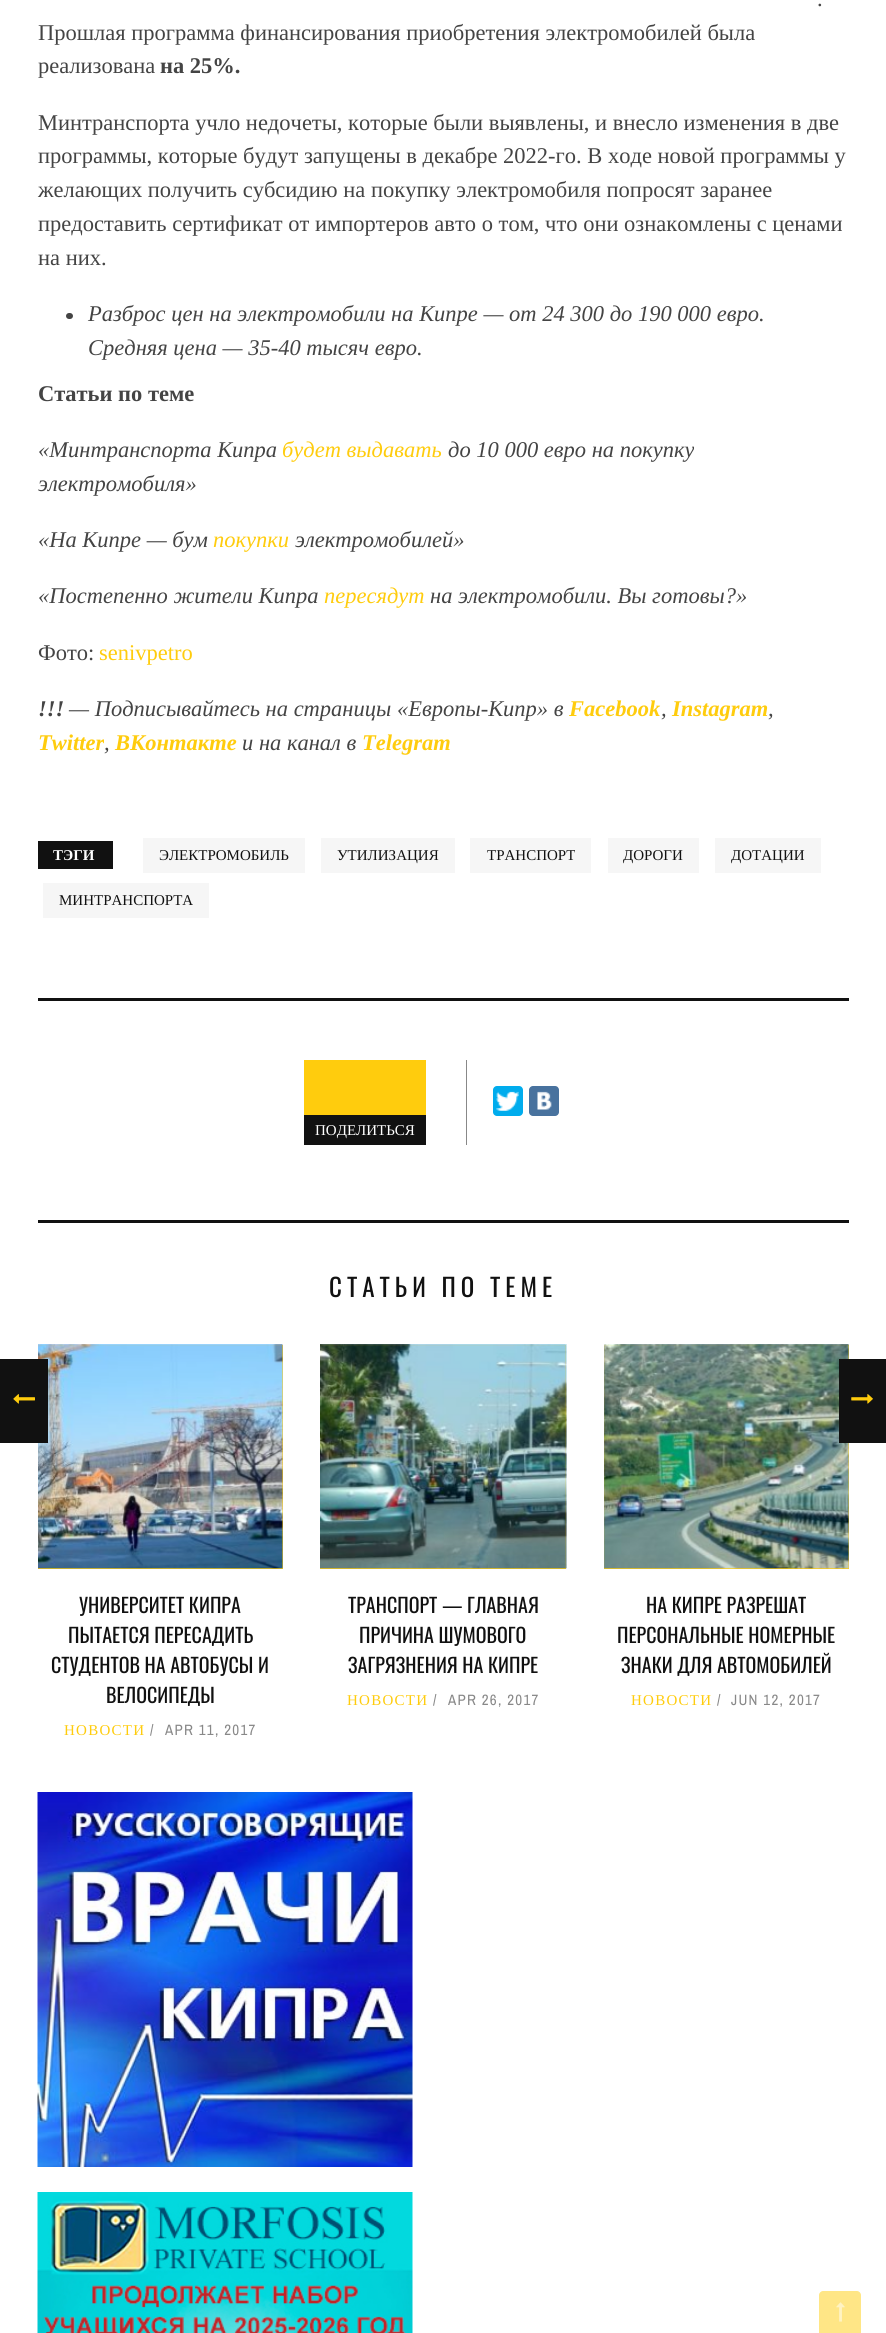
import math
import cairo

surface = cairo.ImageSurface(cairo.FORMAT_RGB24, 886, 2333)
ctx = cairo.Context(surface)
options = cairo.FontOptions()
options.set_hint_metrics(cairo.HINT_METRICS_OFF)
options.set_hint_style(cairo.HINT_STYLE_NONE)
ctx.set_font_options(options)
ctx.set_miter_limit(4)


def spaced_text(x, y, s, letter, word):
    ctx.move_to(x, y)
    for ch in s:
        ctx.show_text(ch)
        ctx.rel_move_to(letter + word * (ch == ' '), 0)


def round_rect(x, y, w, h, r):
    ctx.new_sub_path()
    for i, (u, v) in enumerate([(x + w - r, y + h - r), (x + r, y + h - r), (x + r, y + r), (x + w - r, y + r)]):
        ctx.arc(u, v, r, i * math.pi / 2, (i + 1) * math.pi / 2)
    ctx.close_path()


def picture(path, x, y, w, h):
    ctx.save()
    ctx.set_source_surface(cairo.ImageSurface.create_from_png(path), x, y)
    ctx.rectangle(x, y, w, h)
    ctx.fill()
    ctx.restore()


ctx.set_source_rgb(1, 1, 1)
ctx.paint()
ctx.select_font_face("Liberation Serif")
ctx.set_font_size(22.5)
ctx.set_source_rgb(0.267, 0.267, 0.267)
ctx.move_to(817, 6)
ctx.show_text(".")
ctx.move_to(38, 40)
ctx.show_text("Прошлая программа финансирования приобретения электромобилей была")
ctx.move_to(38, 73)
ctx.show_text("реализована")
ctx.select_font_face("Liberation Serif", cairo.FONT_SLANT_NORMAL, cairo.FONT_WEIGHT_BOLD)
ctx.move_to(160, 73)
ctx.show_text("на 25%.")
ctx.select_font_face("Liberation Serif")
ctx.move_to(38, 130)
ctx.show_text("Минтранспорта учло недочеты, которые были выявлены, и внесло изменения в две")
ctx.move_to(38, 163)
ctx.show_text("программы, которые будут запущены в декабре 2022-го. В ходе новой программы у")
ctx.move_to(38, 197)
ctx.show_text("желающих получить субсидию на покупку электромобиля попросят заранее")
ctx.move_to(38, 231)
ctx.show_text("предоставить сертификат от импортеров авто о том, что они ознакомлены с ценами")
ctx.move_to(38, 265)
ctx.show_text("на них.")
round_rect(66, 313, 7, 6, 3)
ctx.fill()
ctx.select_font_face("Liberation Serif", cairo.FONT_SLANT_ITALIC)
ctx.move_to(88, 321)
ctx.show_text("Разброс цен на электромобили на Кипре — от 24 300 до 190 000 евро.")
ctx.move_to(88, 355)
ctx.show_text("Средняя цена — 35-40 тысяч евро.")
ctx.select_font_face("Liberation Serif", cairo.FONT_SLANT_NORMAL, cairo.FONT_WEIGHT_BOLD)
ctx.move_to(38, 401)
ctx.show_text("Статьи по теме")
ctx.select_font_face("Liberation Serif", cairo.FONT_SLANT_ITALIC)
ctx.move_to(38, 457)
ctx.show_text("«Минтранспорта Кипра")
ctx.set_source_rgb(1, 0.8, 0.051)
ctx.move_to(282, 457)
ctx.show_text("будет выдавать")
ctx.set_source_rgb(0.267, 0.267, 0.267)
ctx.move_to(448, 457)
ctx.show_text("до 10 000 евро на покупку")
ctx.move_to(38, 491)
ctx.show_text("электромобиля»")
ctx.move_to(38, 547)
ctx.show_text("«На Кипре — бум")
ctx.set_source_rgb(1, 0.8, 0.051)
ctx.move_to(213, 547)
ctx.show_text("покупки")
ctx.set_source_rgb(0.267, 0.267, 0.267)
ctx.move_to(295, 547)
ctx.show_text("электромобилей»")
ctx.move_to(38, 603)
ctx.show_text("«Постепенно жители Кипра")
ctx.set_source_rgb(1, 0.8, 0.051)
ctx.move_to(324, 603)
ctx.show_text("пересядут")
ctx.set_source_rgb(0.267, 0.267, 0.267)
ctx.move_to(430, 603)
ctx.show_text("на электромобили. Вы готовы?»")
ctx.select_font_face("Liberation Serif")
ctx.move_to(38, 660)
ctx.show_text("Фото:")
ctx.set_source_rgb(1, 0.8, 0.051)
ctx.move_to(99, 660)
ctx.show_text("senivpetro")
ctx.select_font_face("Liberation Serif", cairo.FONT_SLANT_ITALIC, cairo.FONT_WEIGHT_BOLD)
ctx.set_source_rgb(0.267, 0.267, 0.267)
ctx.move_to(38, 716)
ctx.show_text("!!!")
ctx.select_font_face("Liberation Serif", cairo.FONT_SLANT_ITALIC)
ctx.move_to(69, 716)
ctx.show_text("— Подписывайтесь на страницы «Европы-Кипр» в")
ctx.select_font_face("Liberation Serif", cairo.FONT_SLANT_ITALIC, cairo.FONT_WEIGHT_BOLD)
ctx.set_source_rgb(1, 0.8, 0.051)
ctx.move_to(569, 716)
ctx.show_text("Facebook")
ctx.select_font_face("Liberation Serif", cairo.FONT_SLANT_ITALIC)
ctx.set_source_rgb(0.267, 0.267, 0.267)
ctx.move_to(661, 716)
ctx.show_text(",")
ctx.select_font_face("Liberation Serif", cairo.FONT_SLANT_ITALIC, cairo.FONT_WEIGHT_BOLD)
ctx.set_source_rgb(1, 0.8, 0.051)
ctx.move_to(672, 716)
ctx.show_text("Instagram")
ctx.select_font_face("Liberation Serif", cairo.FONT_SLANT_ITALIC)
ctx.set_source_rgb(0.267, 0.267, 0.267)
ctx.move_to(768, 716)
ctx.show_text(",")
ctx.select_font_face("Liberation Serif", cairo.FONT_SLANT_ITALIC, cairo.FONT_WEIGHT_BOLD)
ctx.set_source_rgb(1, 0.8, 0.051)
ctx.move_to(38, 750)
ctx.show_text("Twitter")
ctx.select_font_face("Liberation Serif", cairo.FONT_SLANT_ITALIC)
ctx.set_source_rgb(0.267, 0.267, 0.267)
ctx.move_to(104, 750)
ctx.show_text(",")
ctx.select_font_face("Liberation Serif", cairo.FONT_SLANT_ITALIC, cairo.FONT_WEIGHT_BOLD)
ctx.set_source_rgb(1, 0.8, 0.051)
ctx.move_to(115, 750)
ctx.show_text("ВКонтакте")
ctx.select_font_face("Liberation Serif", cairo.FONT_SLANT_ITALIC)
ctx.set_source_rgb(0.267, 0.267, 0.267)
ctx.move_to(242, 750)
ctx.show_text("и на канал в")
ctx.select_font_face("Liberation Serif", cairo.FONT_SLANT_ITALIC, cairo.FONT_WEIGHT_BOLD)
ctx.set_source_rgb(1, 0.8, 0.051)
ctx.move_to(362, 750)
ctx.show_text("Telegram")
ctx.set_source_rgb(0.067, 0.067, 0.067)
ctx.rectangle(38, 841, 75, 28)
ctx.fill()
ctx.select_font_face("Liberation Serif", cairo.FONT_SLANT_NORMAL, cairo.FONT_WEIGHT_BOLD)
ctx.set_font_size(15)
ctx.set_source_rgb(1, 1, 1)
ctx.move_to(53, 860)
ctx.show_text("ТЭГИ")
ctx.set_source_rgb(0.961, 0.961, 0.961)
ctx.rectangle(143, 838, 162, 35)
ctx.fill()
ctx.select_font_face("Liberation Serif")
ctx.set_source_rgb(0.067, 0.067, 0.067)
ctx.move_to(159, 860)
ctx.show_text("ЭЛЕКТРОМОБИЛЬ")
ctx.set_source_rgb(0.961, 0.961, 0.961)
ctx.rectangle(321, 838, 134, 35)
ctx.fill()
ctx.set_source_rgb(0.067, 0.067, 0.067)
ctx.move_to(337, 860)
ctx.show_text("УТИЛИЗАЦИЯ")
ctx.set_source_rgb(0.961, 0.961, 0.961)
ctx.rectangle(470, 838, 121, 35)
ctx.fill()
ctx.set_source_rgb(0.067, 0.067, 0.067)
ctx.move_to(487, 860)
ctx.show_text("ТРАНСПОРТ")
ctx.set_source_rgb(0.961, 0.961, 0.961)
ctx.rectangle(608, 838, 91, 35)
ctx.fill()
ctx.set_source_rgb(0.067, 0.067, 0.067)
ctx.move_to(623, 860)
ctx.show_text("ДОРОГИ")
ctx.set_source_rgb(0.961, 0.961, 0.961)
ctx.rectangle(715, 838, 106, 35)
ctx.fill()
ctx.set_source_rgb(0.067, 0.067, 0.067)
ctx.move_to(731, 860)
ctx.show_text("ДОТАЦИИ")
ctx.set_source_rgb(0.961, 0.961, 0.961)
ctx.rectangle(43, 883, 166, 35)
ctx.fill()
ctx.set_source_rgb(0.067, 0.067, 0.067)
ctx.move_to(59, 905)
ctx.show_text("МИНТРАНСПОРТА")
ctx.rectangle(38, 998, 811, 3)
ctx.fill()
ctx.set_source_rgb(0, 0.675, 0.929)
round_rect(493, 1086, 30, 30, 4)
ctx.fill()
picture("img1.png", 496, 1091, 23, 20)
ctx.set_source_rgb(0.282, 0.447, 0.62)
round_rect(529, 1086, 30, 30, 4)
ctx.fill()
picture("img2.png", 537, 1091, 15, 19)
ctx.set_source_rgb(0.533, 0.533, 0.533)
ctx.rectangle(466, 1060, 1, 85)
ctx.fill()
ctx.set_source_rgb(1, 0.8, 0.051)
ctx.rectangle(304, 1060, 122, 55)
ctx.fill()
ctx.set_source_rgb(0.067, 0.067, 0.067)
ctx.rectangle(304, 1115, 122, 30)
ctx.fill()
ctx.set_source_rgb(1, 1, 1)
ctx.move_to(315, 1135)
ctx.show_text("ПОДЕЛИТЬСЯ")
ctx.set_source_rgb(0.067, 0.067, 0.067)
ctx.rectangle(38, 1220, 811, 3)
ctx.fill()
ctx.select_font_face("Oswald")
ctx.set_font_size(25)
spaced_text(329, 1297, "СТАТЬИ ПО ТЕМЕ", 5, 0)
ctx.set_source_rgb(1, 0.8, 0.051)
ctx.rectangle(38, 1345, 245, 224)
ctx.fill()
picture("img3.png", 38, 1344, 245, 225)
ctx.set_font_size(20)
ctx.set_source_rgb(0.067, 0.067, 0.067)
ctx.move_to(79, 1613)
ctx.show_text("УНИВЕРСИТЕТ КИПРА")
ctx.move_to(68, 1643)
ctx.show_text("ПЫТАЕТСЯ ПЕРЕСАДИТЬ")
ctx.move_to(51, 1673)
ctx.show_text("СТУДЕНТОВ НА АВТОБУСЫ И")
ctx.move_to(106, 1703)
ctx.show_text("ВЕЛОСИПЕДЫ")
ctx.select_font_face("Liberation Serif")
ctx.set_font_size(15)
ctx.set_source_rgb(1, 0.8, 0.051)
spaced_text(64, 1735, "НОВОСТИ", 1.25, 0)
ctx.select_font_face("Archivo Narrow")
ctx.set_source_rgb(0.533, 0.533, 0.533)
spaced_text(150, 1735, "/", 1.25, 0)
spaced_text(165, 1735, "APR 11, 2017", 1.25, 0)
ctx.set_source_rgb(1, 0.8, 0.051)
ctx.rectangle(320, 1345, 246, 224)
ctx.fill()
picture("img4.png", 320, 1344, 247, 225)
ctx.select_font_face("Oswald")
ctx.set_font_size(20)
ctx.set_source_rgb(0.067, 0.067, 0.067)
ctx.move_to(348, 1613)
ctx.show_text("ТРАНСПОРТ — ГЛАВНАЯ")
ctx.move_to(359, 1643)
ctx.show_text("ПРИЧИНА ШУМОВОГО")
ctx.move_to(348, 1673)
ctx.show_text("ЗАГРЯЗНЕНИЯ НА КИПРЕ")
ctx.select_font_face("Liberation Serif")
ctx.set_font_size(15)
ctx.set_source_rgb(1, 0.8, 0.051)
spaced_text(347, 1705, "НОВОСТИ", 1.25, 0)
ctx.select_font_face("Archivo Narrow")
ctx.set_source_rgb(0.533, 0.533, 0.533)
spaced_text(433, 1705, "/", 1.25, 0)
spaced_text(448, 1705, "APR 26, 2017", 1.25, 0)
ctx.set_source_rgb(1, 0.8, 0.051)
ctx.rectangle(604, 1345, 245, 224)
ctx.fill()
picture("img5.png", 604, 1344, 245, 225)
ctx.select_font_face("Oswald")
ctx.set_font_size(20)
ctx.set_source_rgb(0.067, 0.067, 0.067)
ctx.move_to(646, 1613)
ctx.show_text("НА КИПРЕ РАЗРЕШАТ")
ctx.move_to(617, 1643)
ctx.show_text("ПЕРСОНАЛЬНЫЕ НОМЕРНЫЕ")
ctx.move_to(621, 1673)
ctx.show_text("ЗНАКИ ДЛЯ АВТОМОБИЛЕЙ")
ctx.select_font_face("Liberation Serif")
ctx.set_font_size(15)
ctx.set_source_rgb(1, 0.8, 0.051)
spaced_text(631, 1705, "НОВОСТИ", 1.25, 0)
ctx.select_font_face("Archivo Narrow")
ctx.set_source_rgb(0.533, 0.533, 0.533)
spaced_text(717, 1705, "/", 1.25, 0)
spaced_text(731, 1705, "JUN 12, 2017", 1.25, 0)
ctx.set_source_rgb(0.067, 0.067, 0.067)
ctx.rectangle(0, 1359, 48, 84)
ctx.fill()
picture("img6.png", 13, 1394, 22, 10)
ctx.rectangle(839, 1359, 47, 84)
ctx.fill()
picture("img7.png", 851, 1394, 22, 10)
picture("img8.png", 37, 1792, 376, 375)
picture("img9.png", 37, 2192, 376, 141)
ctx.set_source_rgb(1, 0.902, 0.525)
ctx.new_path()
ctx.move_to(823, 2291)
ctx.line_to(857, 2291)
ctx.curve_to(859, 2291, 861, 2293, 861, 2295)
ctx.line_to(861, 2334)
ctx.line_to(819, 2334)
ctx.line_to(819, 2295)
ctx.curve_to(819, 2293, 821, 2291, 823, 2291)
ctx.close_path()
ctx.fill()
picture("img10.png", 836, 2302, 9, 20)
surface.write_to_png("page.png")
